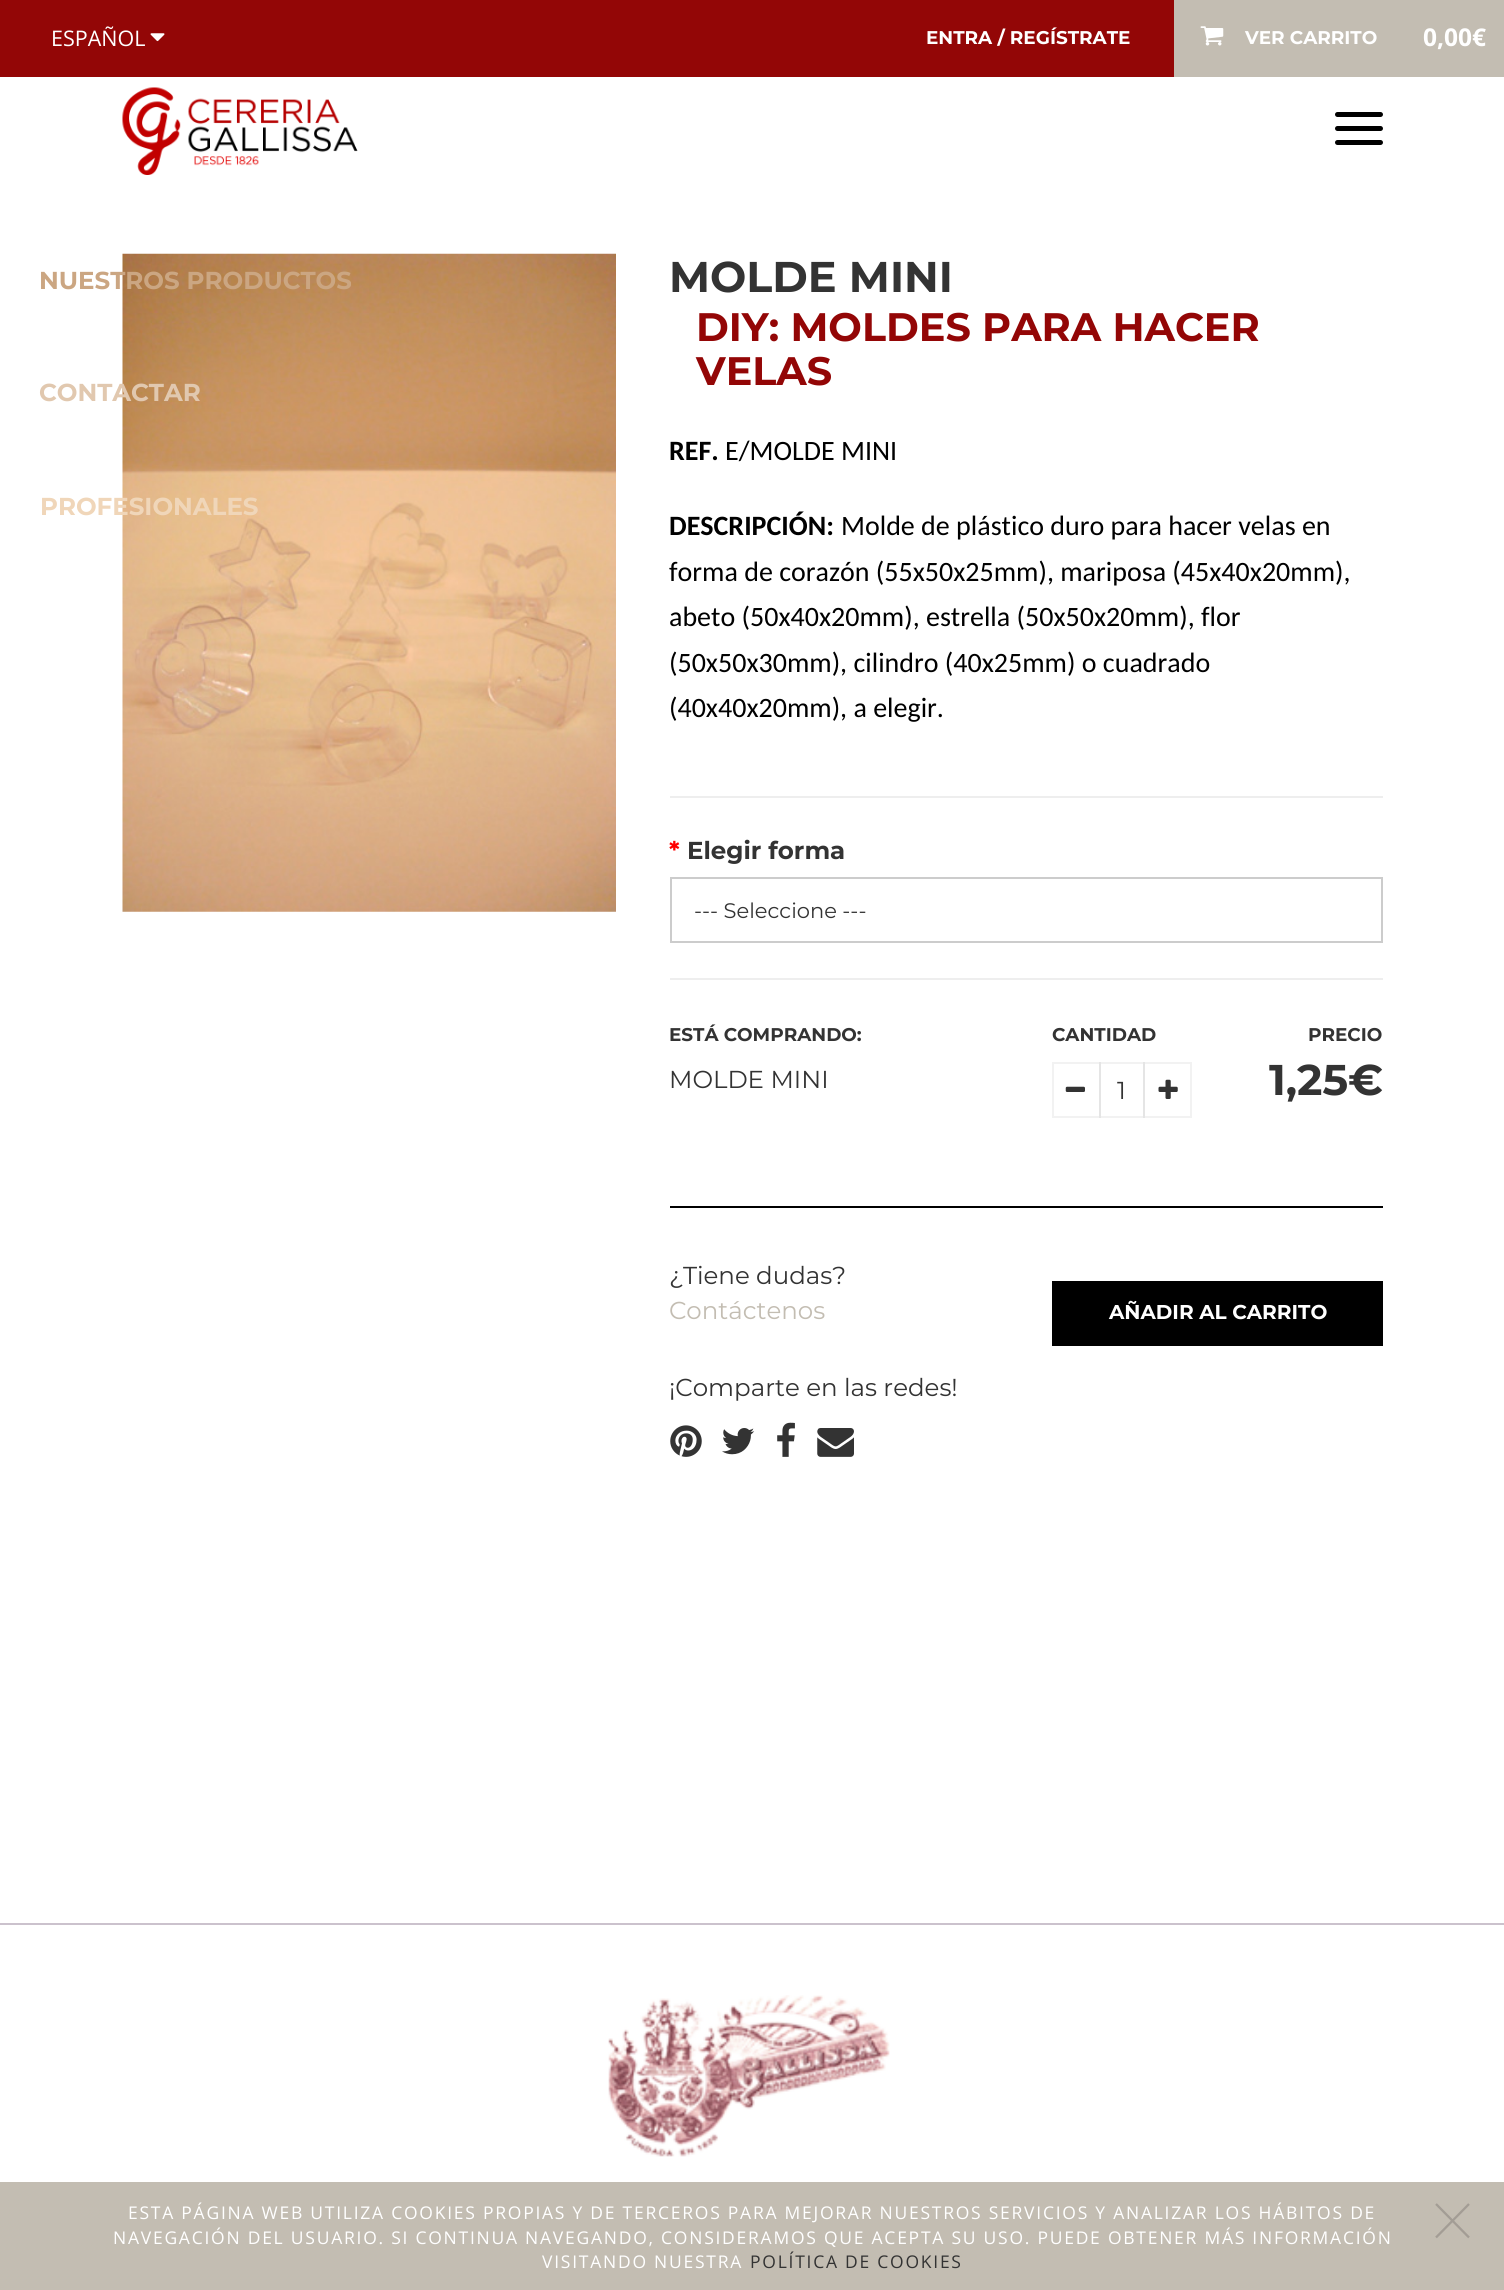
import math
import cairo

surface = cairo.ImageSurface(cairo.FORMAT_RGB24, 1504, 2290)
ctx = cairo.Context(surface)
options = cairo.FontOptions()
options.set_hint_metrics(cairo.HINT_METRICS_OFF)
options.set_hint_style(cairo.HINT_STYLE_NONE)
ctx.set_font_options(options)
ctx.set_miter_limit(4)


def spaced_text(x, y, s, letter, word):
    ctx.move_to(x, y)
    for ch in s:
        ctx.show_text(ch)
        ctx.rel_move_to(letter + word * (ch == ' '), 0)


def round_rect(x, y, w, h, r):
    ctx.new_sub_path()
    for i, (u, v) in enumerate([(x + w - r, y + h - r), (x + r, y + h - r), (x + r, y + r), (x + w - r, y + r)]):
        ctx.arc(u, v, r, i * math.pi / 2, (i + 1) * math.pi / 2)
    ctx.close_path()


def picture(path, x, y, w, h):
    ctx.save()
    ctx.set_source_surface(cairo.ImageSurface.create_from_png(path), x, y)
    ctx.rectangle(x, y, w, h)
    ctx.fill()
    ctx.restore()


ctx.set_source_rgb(1, 1, 1)
ctx.paint()
ctx.set_source_rgb(0.576, 0.024, 0.024)
ctx.rectangle(0, 0, 1174, 77)
ctx.fill()
ctx.select_font_face("Open Sans")
ctx.set_font_size(21.5)
ctx.set_source_rgb(1, 1, 1)
ctx.move_to(51, 46)
ctx.show_text("ESPAÑOL")
picture("img1.png", 150, 33, 15, 9)
ctx.select_font_face("Montserrat", cairo.FONT_SLANT_NORMAL, cairo.FONT_WEIGHT_BOLD)
ctx.set_font_size(18.4)
ctx.move_to(926, 44)
ctx.show_text("ENTRA / REGÍSTRATE")
ctx.set_source_rgb(0.765, 0.741, 0.698)
ctx.rectangle(1174, 0, 330, 77)
ctx.fill()
picture("img2.png", 1200, 26, 24, 20)
ctx.set_source_rgb(1, 1, 1)
ctx.move_to(1245, 44)
ctx.show_text("VER CARRITO")
ctx.select_font_face("Open Sans", cairo.FONT_SLANT_NORMAL, cairo.FONT_WEIGHT_BOLD)
ctx.set_font_size(24.5)
ctx.move_to(1423, 46)
ctx.show_text("0,00€")
picture("img3.png", 122, 87, 236, 88)
ctx.set_source_rgb(0, 0, 0)
round_rect(1335, 112, 48, 5, 2.5)
ctx.fill()
round_rect(1335, 126, 48, 5, 2.5)
ctx.fill()
round_rect(1335, 140, 48, 5, 2.5)
ctx.fill()
picture("img4.png", 122, 253, 494, 659)
ctx.select_font_face("Montserrat", cairo.FONT_SLANT_NORMAL, cairo.FONT_WEIGHT_BOLD)
ctx.set_source_rgb(0.796, 0.651, 0.51)
ctx.move_to(39, 289)
ctx.show_text("NUESTROS PRODUCTOS")
ctx.set_source_rgb(0.882, 0.784, 0.686)
ctx.move_to(39, 401)
ctx.show_text("CONTACTAR")
ctx.set_source_rgb(0.941, 0.839, 0.725)
ctx.move_to(40, 515)
ctx.show_text("PROFESIONALES")
ctx.set_font_size(43)
ctx.set_source_rgb(0.2, 0.2, 0.2)
ctx.move_to(669, 292)
ctx.show_text("MOLDE MINI")
ctx.set_font_size(39.75)
ctx.set_source_rgb(0.576, 0.024, 0.024)
ctx.move_to(696, 341)
ctx.show_text("DIY: MOLDES PARA HACER")
ctx.move_to(696, 385)
ctx.show_text("VELAS")
ctx.select_font_face("Carlito", cairo.FONT_SLANT_NORMAL, cairo.FONT_WEIGHT_BOLD)
ctx.set_font_size(28)
ctx.set_source_rgb(0, 0, 0)
ctx.move_to(669, 460)
ctx.show_text("REF.")
ctx.select_font_face("Carlito")
ctx.move_to(725, 460)
ctx.show_text("E/MOLDE MINI")
ctx.select_font_face("Carlito", cairo.FONT_SLANT_NORMAL, cairo.FONT_WEIGHT_BOLD)
ctx.move_to(669, 535)
ctx.show_text("DESCRIPCIÓN:")
ctx.select_font_face("Carlito")
ctx.move_to(841, 535)
ctx.show_text("Molde de plástico duro para hacer velas en")
ctx.move_to(669, 581)
ctx.show_text("forma de corazón (55x50x25mm), mariposa (45x40x20mm),")
ctx.move_to(669, 626)
ctx.show_text("abeto (50x40x20mm), estrella (50x50x20mm), flor")
ctx.move_to(669, 672)
ctx.show_text("(50x50x30mm), cilindro (40x25mm) o cuadrado")
ctx.move_to(669, 717)
ctx.show_text("(40x40x20mm), a elegir.")
ctx.set_source_rgb(0.933, 0.933, 0.933)
ctx.rectangle(670, 796, 713, 2)
ctx.fill()
ctx.select_font_face("Montserrat", cairo.FONT_SLANT_NORMAL, cairo.FONT_WEIGHT_BOLD)
ctx.set_font_size(24.5)
ctx.set_source_rgb(1, 0, 0)
ctx.move_to(669, 859)
ctx.show_text("*")
ctx.set_source_rgb(0.2, 0.2, 0.2)
ctx.move_to(687, 859)
ctx.show_text("Elegir forma")
ctx.rectangle(671, 878, 711, 64)
ctx.set_source_rgb(0.8, 0.8, 0.8)
ctx.stroke()
ctx.select_font_face("Montserrat")
ctx.set_font_size(21)
ctx.set_source_rgb(0.2, 0.2, 0.2)
ctx.move_to(694, 918)
ctx.show_text("--- Seleccione ---")
ctx.set_source_rgb(0.933, 0.933, 0.933)
ctx.rectangle(670, 978, 713, 2)
ctx.fill()
ctx.select_font_face("Montserrat", cairo.FONT_SLANT_NORMAL, cairo.FONT_WEIGHT_BOLD)
ctx.set_font_size(18.4)
ctx.set_source_rgb(0.2, 0.2, 0.2)
ctx.move_to(669, 1041)
ctx.show_text("ESTÁ COMPRANDO:")
ctx.select_font_face("Montserrat")
ctx.set_font_size(24.5)
ctx.move_to(669, 1088)
ctx.show_text("MOLDE MINI")
ctx.select_font_face("Montserrat", cairo.FONT_SLANT_NORMAL, cairo.FONT_WEIGHT_BOLD)
ctx.set_font_size(18.4)
ctx.move_to(1052, 1041)
ctx.show_text("CANTIDAD")
ctx.rectangle(1053, 1063, 138, 54)
ctx.set_source_rgb(0.949, 0.949, 0.949)
ctx.stroke()
ctx.set_source_rgb(0.898, 0.898, 0.898)
ctx.rectangle(1099, 1062, 2, 56)
ctx.fill()
picture("img5.png", 1065, 1086, 20, 6)
ctx.select_font_face("Montserrat")
ctx.set_font_size(24.5)
ctx.set_source_rgb(0.2, 0.2, 0.2)
ctx.move_to(1117, 1099)
ctx.show_text("1")
ctx.set_source_rgb(0.898, 0.898, 0.898)
ctx.rectangle(1143, 1062, 2, 56)
ctx.fill()
picture("img6.png", 1158, 1079, 20, 20)
ctx.select_font_face("Montserrat", cairo.FONT_SLANT_NORMAL, cairo.FONT_WEIGHT_BOLD)
ctx.set_font_size(18.4)
ctx.set_source_rgb(0.2, 0.2, 0.2)
ctx.move_to(1308, 1041)
ctx.show_text("PRECIO")
ctx.set_font_size(43)
ctx.move_to(1269, 1095)
ctx.show_text("1,25€")
ctx.set_source_rgb(0, 0, 0)
ctx.rectangle(670, 1206, 713, 2)
ctx.fill()
ctx.select_font_face("Montserrat")
ctx.set_font_size(24.5)
ctx.set_source_rgb(0.2, 0.2, 0.2)
ctx.move_to(669, 1284)
ctx.show_text("¿Tiene dudas?")
ctx.set_source_rgb(0.765, 0.741, 0.698)
ctx.move_to(669, 1319)
ctx.show_text("Contáctenos")
ctx.set_source_rgb(0.2, 0.2, 0.2)
ctx.move_to(669, 1396)
ctx.show_text("¡Comparte en las redes!")
picture("img7.png", 670, 1425, 32, 32)
picture("img8.png", 722, 1428, 33, 27)
picture("img9.png", 777, 1422, 18, 35)
picture("img10.png", 817, 1428, 37, 29)
ctx.set_source_rgb(0, 0, 0)
ctx.rectangle(1052, 1281, 331, 65)
ctx.fill()
ctx.select_font_face("Montserrat", cairo.FONT_SLANT_NORMAL, cairo.FONT_WEIGHT_BOLD)
ctx.set_font_size(20)
ctx.set_source_rgb(1, 1, 1)
ctx.move_to(1109, 1319)
ctx.show_text("AÑADIR AL CARRITO")
ctx.set_source_rgb(0.765, 0.741, 0.698)
ctx.rectangle(0, 2182, 1504, 108)
ctx.fill()
ctx.select_font_face("Open Sans")
ctx.set_font_size(17.5)
ctx.set_source_rgb(1, 1, 1)
spaced_text(128, 2219, "ESTA PÁGINA WEB UTILIZA COOKIES PROPIAS Y DE TERCEROS PARA MEJORAR NUESTROS SERVICIOS Y ANALIZAR LOS HÁBITOS DE", 1.75, 0)
spaced_text(113, 2244, "NAVEGACIÓN DEL USUARIO. SI CONTINUA NAVEGANDO, CONSIDERAMOS QUE ACEPTA SU USO. PUEDE OBTENER MÁS INFORMACIÓN", 1.75, 0)
spaced_text(542, 2268, "VISITANDO NUESTRA", 1.75, 0)
ctx.set_source_rgb(0.2, 0.2, 0.2)
spaced_text(750, 2268, "POLÍTICA DE COOKIES", 1.75, 0)
ctx.new_path()
ctx.move_to(1469, 2204)
ctx.line_to(1436, 2237.5)
ctx.move_to(1469, 2237.5)
ctx.line_to(1436, 2204)
ctx.set_source_rgb(0.639, 0.616, 0.584)
ctx.set_line_width(2.3)
ctx.stroke()
ctx.set_source_rgb(0.796, 0.761, 0.804)
ctx.rectangle(0, 1923, 1504, 2)
ctx.fill()
picture("img11.png", 608, 1995, 282, 162)
surface.write_to_png("page.png")
